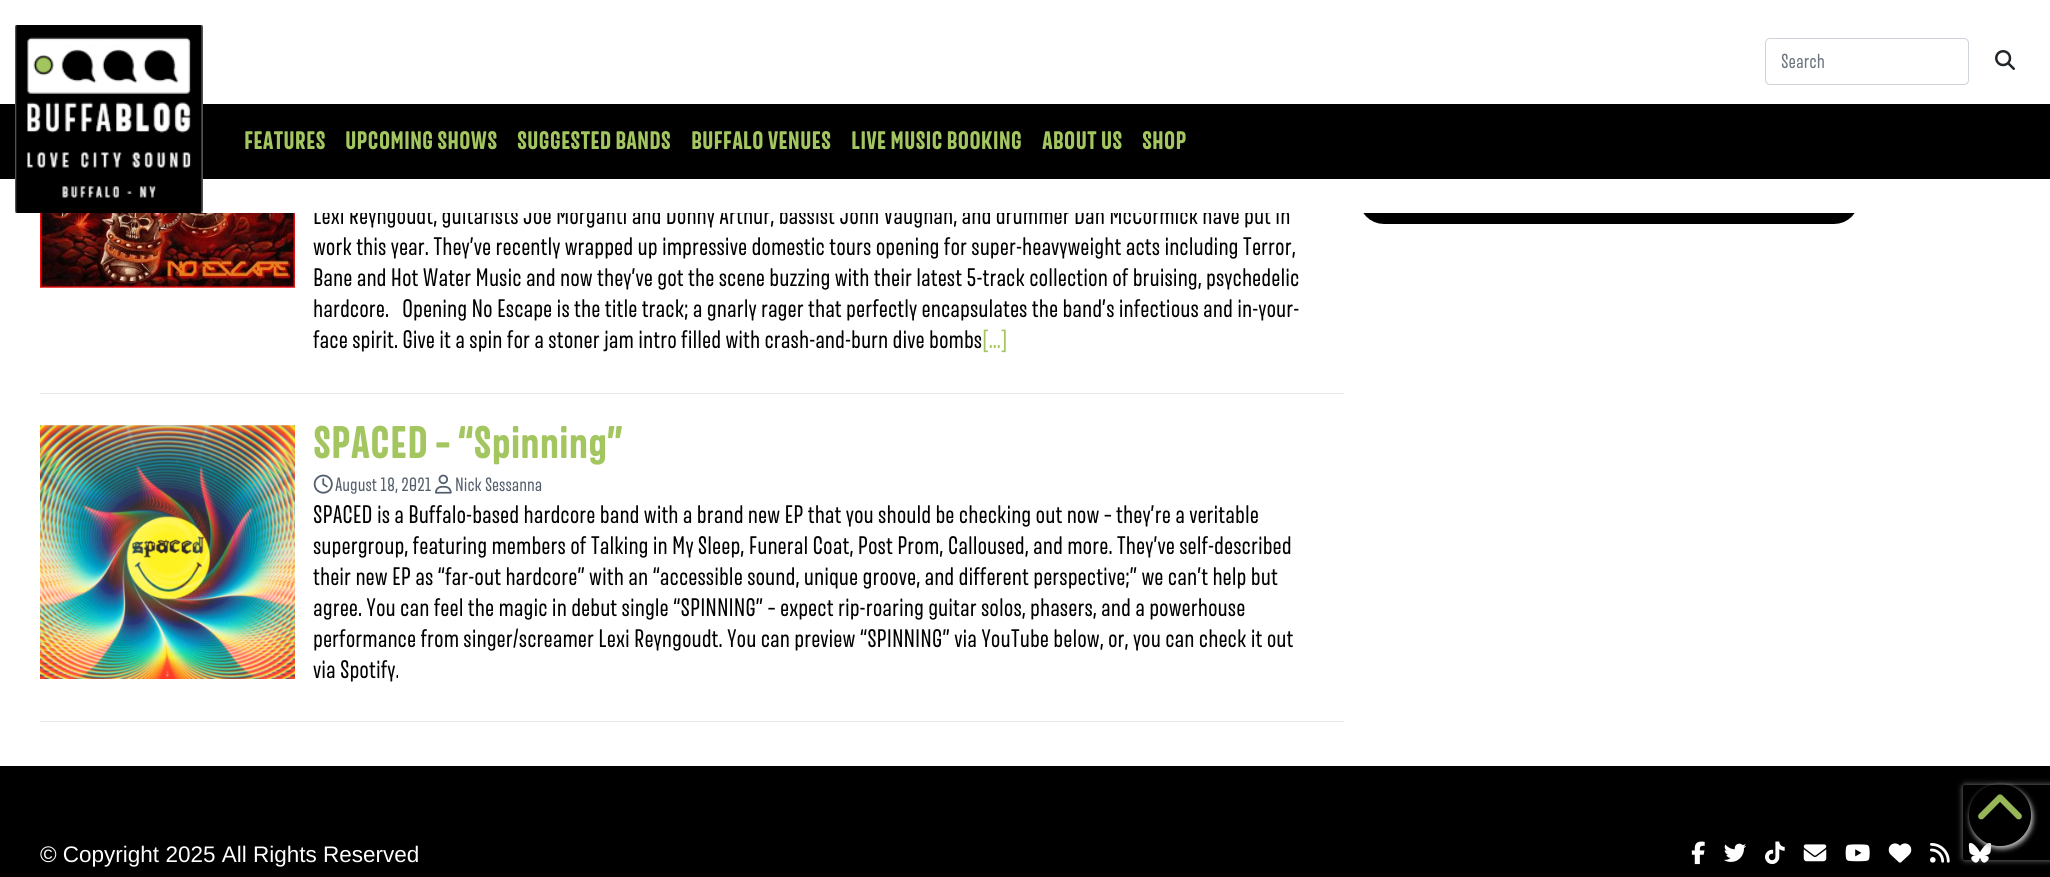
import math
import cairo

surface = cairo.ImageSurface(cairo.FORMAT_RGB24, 2050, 877)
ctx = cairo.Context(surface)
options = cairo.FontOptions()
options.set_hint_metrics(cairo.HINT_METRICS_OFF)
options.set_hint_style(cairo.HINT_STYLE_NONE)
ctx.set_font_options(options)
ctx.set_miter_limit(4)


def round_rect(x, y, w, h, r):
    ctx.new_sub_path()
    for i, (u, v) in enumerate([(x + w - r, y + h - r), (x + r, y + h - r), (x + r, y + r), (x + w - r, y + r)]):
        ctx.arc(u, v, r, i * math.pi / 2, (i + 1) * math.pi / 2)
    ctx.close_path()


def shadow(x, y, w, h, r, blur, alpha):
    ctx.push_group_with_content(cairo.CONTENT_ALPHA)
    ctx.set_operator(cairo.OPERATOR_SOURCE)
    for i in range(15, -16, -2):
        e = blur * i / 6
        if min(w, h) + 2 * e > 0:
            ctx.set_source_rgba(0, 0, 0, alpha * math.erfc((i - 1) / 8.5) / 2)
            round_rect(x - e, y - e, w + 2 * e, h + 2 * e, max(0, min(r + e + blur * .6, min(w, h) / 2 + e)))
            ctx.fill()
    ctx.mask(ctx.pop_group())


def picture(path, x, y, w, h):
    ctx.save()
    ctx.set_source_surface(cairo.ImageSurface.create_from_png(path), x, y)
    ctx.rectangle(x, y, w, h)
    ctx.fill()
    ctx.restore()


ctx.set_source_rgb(1, 1, 1)
ctx.paint()
round_rect(1371.5, 57.5, 475, 154, 12.5)
ctx.set_source_rgb(0, 0, 0)
ctx.set_line_width(25)
ctx.stroke()
ctx.select_font_face("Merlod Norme")
ctx.set_font_size(25)
ctx.move_to(313, 224)
ctx.show_text("Lexi Reyngoudt, guitarists Joe Morganti and Donny Arthur, bassist John Vaughan, and drummer Dan McCormick have put in")
ctx.set_source_rgb(1, 1, 1)
ctx.rectangle(314, 45, 1545, 168)
ctx.fill()
ctx.set_source_rgb(0, 0, 0)
ctx.rectangle(0, 104, 2050, 75)
ctx.fill()
picture("img1.png", 15, 25, 188, 188)
round_rect(1765.5, 38.5, 203, 46, 4.5)
ctx.set_source_rgb(0.808, 0.831, 0.855)
ctx.set_line_width(1)
ctx.stroke()
ctx.set_font_size(20)
ctx.set_source_rgb(0.424, 0.459, 0.49)
ctx.move_to(1781, 68)
ctx.show_text("Search")
picture("img2.png", 1995, 50, 20, 20)
ctx.select_font_face("Merlod Norme", cairo.FONT_SLANT_NORMAL, cairo.FONT_WEIGHT_BOLD)
ctx.set_font_size(25)
ctx.set_source_rgb(0.639, 0.776, 0.376)
ctx.move_to(244, 149)
ctx.show_text("FEATURES")
ctx.move_to(345, 149)
ctx.show_text("UPCOMING SHOWS")
ctx.move_to(517, 149)
ctx.show_text("SUGGESTED BANDS")
ctx.move_to(691, 149)
ctx.show_text("BUFFALO VENUES")
ctx.move_to(851, 149)
ctx.show_text("LIVE MUSIC BOOKING")
ctx.move_to(1042, 149)
ctx.show_text("ABOUT US")
ctx.move_to(1142, 149)
ctx.show_text("SHOP")
ctx.set_source_rgb(0.894, 0.91, 0.929)
ctx.rectangle(40, 393, 1304, 1)
ctx.fill()
picture("img3.png", 40, 213, 255, 75)
ctx.select_font_face("Merlod Norme")
ctx.set_source_rgb(0, 0, 0)
ctx.move_to(313, 255)
ctx.show_text("work this year. They’ve recently wrapped up impressive domestic tours opening for super-heavyweight acts including Terror,")
ctx.move_to(313, 286)
ctx.show_text("Bane and Hot Water Music and now they’ve got the scene buzzing with their latest 5-track collection of bruising, psychedelic")
ctx.move_to(313, 317)
ctx.show_text("hardcore.   Opening No Escape is the title track; a gnarly rager that perfectly encapsulates the band’s infectious and in-your-")
ctx.move_to(313, 348)
ctx.show_text("face spirit. Give it a spin for a stoner jam intro filled with crash-and-burn dive bombs")
ctx.set_source_rgb(0.639, 0.776, 0.376)
ctx.move_to(982, 348)
ctx.show_text("[...]")
ctx.set_source_rgb(0.894, 0.91, 0.929)
ctx.rectangle(40, 721, 1304, 1)
ctx.fill()
picture("img4.png", 40, 425, 255, 254)
ctx.select_font_face("Merlod Norme", cairo.FONT_SLANT_NORMAL, cairo.FONT_WEIGHT_BOLD)
ctx.set_font_size(45)
ctx.set_source_rgb(0.639, 0.776, 0.376)
ctx.move_to(313, 458)
ctx.show_text("SPACED – “Spinning”")
picture("img5.png", 313, 474, 20, 20)
ctx.select_font_face("Merlod Norme")
ctx.set_font_size(19)
ctx.set_source_rgb(0.325, 0.373, 0.424)
ctx.move_to(335, 491)
ctx.show_text("August 18, 2021")
picture("img6.png", 435, 474, 17, 20)
ctx.move_to(455, 491)
ctx.show_text("Nick Sessanna")
ctx.set_font_size(25)
ctx.set_source_rgb(0, 0, 0)
ctx.move_to(313, 523)
ctx.show_text("SPACED is a Buffalo-based hardcore band with a brand new EP that you should be checking out now – they’re a veritable")
ctx.move_to(313, 554)
ctx.show_text("supergroup, featuring members of Talking in My Sleep, Funeral Coat, Post Prom, Calloused, and more. They’ve self-described")
ctx.move_to(313, 585)
ctx.show_text("their new EP as “far-out hardcore” with an “accessible sound, unique groove, and different perspective;” we can’t help but")
ctx.move_to(313, 616)
ctx.show_text("agree. You can feel the magic in debut single “SPINNING” – expect rip-roaring guitar solos, phasers, and a powerhouse")
ctx.move_to(313, 647)
ctx.show_text("performance from singer/screamer Lexi Reyngoudt. You can preview “SPINNING” via YouTube below, or, you can check it out")
ctx.move_to(313, 678)
ctx.show_text("via Spotify.")
ctx.rectangle(0, 766, 2050, 111)
ctx.fill()
ctx.save()
ctx.set_fill_rule(cairo.FILL_RULE_EVEN_ODD)
ctx.new_path()
ctx.move_to(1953, 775)
ctx.line_to(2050, 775)
ctx.line_to(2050, 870)
ctx.line_to(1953, 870)
ctx.close_path()
ctx.move_to(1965.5, 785)
ctx.line_to(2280.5, 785)
ctx.curve_to(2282, 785, 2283, 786, 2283, 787.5)
ctx.line_to(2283, 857.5)
ctx.curve_to(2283, 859, 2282, 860, 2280.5, 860)
ctx.line_to(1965.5, 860)
ctx.curve_to(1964, 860, 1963, 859, 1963, 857.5)
ctx.line_to(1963, 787.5)
ctx.curve_to(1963, 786, 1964, 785, 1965.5, 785)
ctx.close_path()
ctx.clip()
ctx.set_source_rgb(0.502, 0.502, 0.502)
shadow(1963, 785, 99, 75, 2.5, 3, 1)
ctx.restore()
ctx.select_font_face("Liberation Sans")
ctx.set_font_size(22.5)
ctx.set_source_rgb(1, 1, 1)
ctx.move_to(40, 862)
ctx.show_text("© Copyright 2025 All Rights Reserved")
picture("img7.png", 1691, 841, 14, 24)
picture("img8.png", 1723, 843, 23, 19)
picture("img9.png", 1765, 841, 20, 24)
picture("img10.png", 1803, 844, 24, 18)
picture("img11.png", 1845, 844, 25, 18)
picture("img12.png", 1888, 843, 24, 20)
picture("img13.png", 1930, 843, 20, 20)
picture("img14.png", 1968, 843, 24, 20)
ctx.save()
ctx.set_fill_rule(cairo.FILL_RULE_EVEN_ODD)
ctx.new_path()
ctx.move_to(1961, 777)
ctx.line_to(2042, 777)
ctx.line_to(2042, 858)
ctx.line_to(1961, 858)
ctx.close_path()
ctx.move_to(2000, 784)
ctx.curve_to(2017, 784, 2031, 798, 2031, 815)
ctx.curve_to(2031, 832, 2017, 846, 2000, 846)
ctx.curve_to(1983, 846, 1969, 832, 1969, 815)
ctx.curve_to(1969, 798, 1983, 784, 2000, 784)
ctx.close_path()
ctx.clip()
ctx.set_source_rgb(0.8, 0.8, 0.8)
shadow(1970, 786, 63, 63, 31.5, 2.5, 0.92)
ctx.restore()
picture("img15.png", 1978, 794, 44, 26)
surface.write_to_png("page.png")
